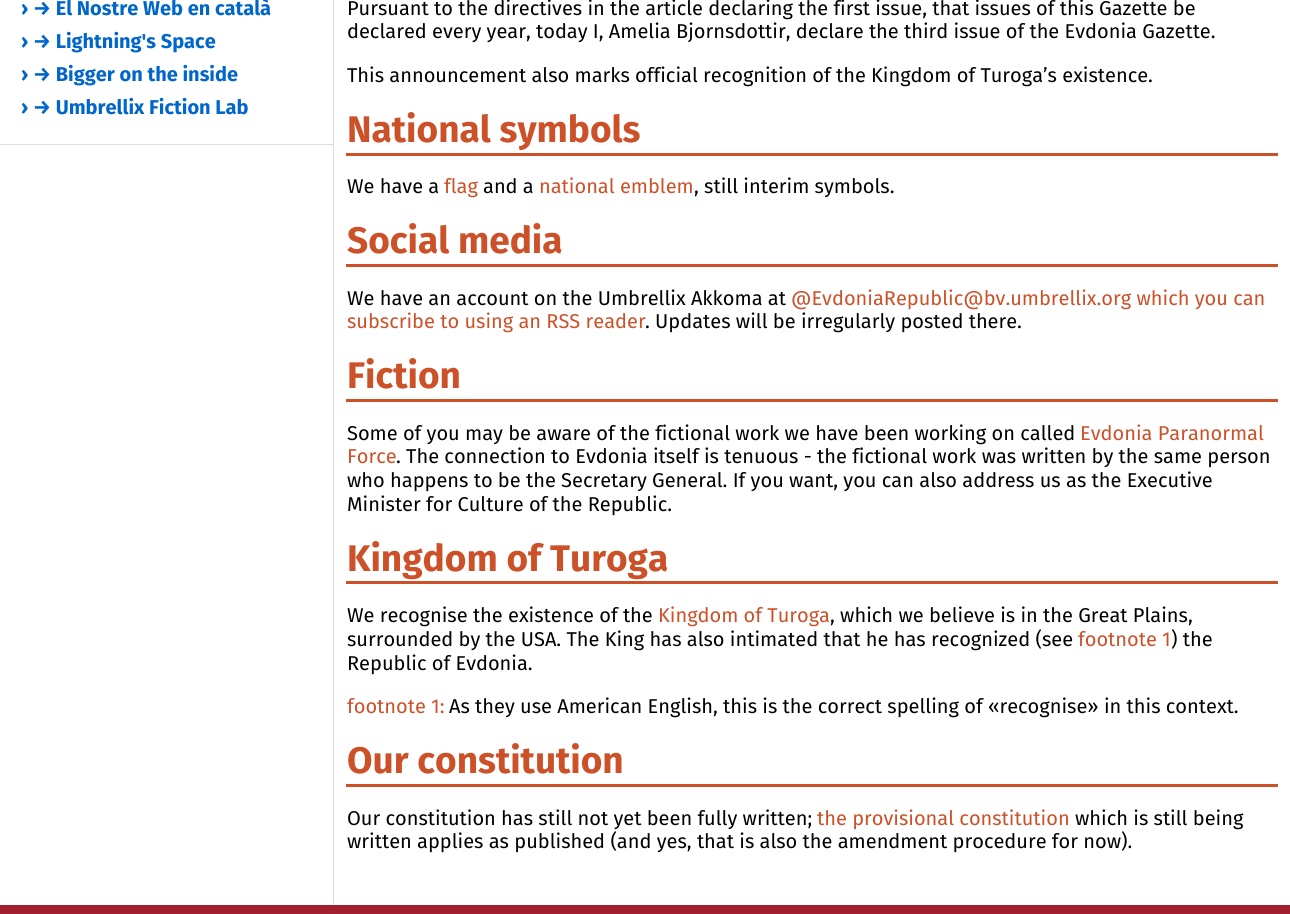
import math
import cairo

surface = cairo.ImageSurface(cairo.FORMAT_RGB24, 1290, 914)
ctx = cairo.Context(surface)
options = cairo.FontOptions()
options.set_hint_metrics(cairo.HINT_METRICS_OFF)
options.set_hint_style(cairo.HINT_STYLE_NONE)
ctx.set_font_options(options)
ctx.set_miter_limit(4)


ctx.set_source_rgb(1, 1, 1)
ctx.paint()
ctx.set_source_rgb(0.867, 0.867, 0.867)
ctx.rectangle(333, 0, 1, 905)
ctx.fill()
ctx.rectangle(0, 144, 333, 1)
ctx.fill()
ctx.select_font_face("Fira Sans", cairo.FONT_SLANT_NORMAL, cairo.FONT_WEIGHT_BOLD)
ctx.set_font_size(20)
ctx.set_source_rgb(0, 0.4, 0.8)
ctx.move_to(21, 15)
ctx.show_text("› → El Nostre Web en català")
ctx.move_to(21, 48)
ctx.show_text("› → Lightning's Space")
ctx.move_to(21, 81)
ctx.show_text("› → Bigger on the inside")
ctx.move_to(21, 114)
ctx.show_text("› → Umbrellix Fiction Lab")
ctx.select_font_face("Fira Sans")
ctx.set_source_rgb(0, 0, 0)
ctx.move_to(347, 15)
ctx.show_text("Pursuant to the directives in the article declaring the first issue, that issues of this Gazette be")
ctx.move_to(347, 38)
ctx.show_text("declared every year, today I, Amelia Bjornsdottir, declare the third issue of the Evdonia Gazette.")
ctx.move_to(347, 82)
ctx.show_text("This announcement also marks official recognition of the Kingdom of Turoga’s existence.")
ctx.set_source_rgb(0.8, 0.314, 0.157)
ctx.rectangle(346, 153, 932, 3)
ctx.fill()
ctx.select_font_face("Fira Sans", cairo.FONT_SLANT_NORMAL, cairo.FONT_WEIGHT_BOLD)
ctx.set_font_size(37)
ctx.move_to(347, 142)
ctx.show_text("National symbols")
ctx.select_font_face("Fira Sans")
ctx.set_font_size(20)
ctx.set_source_rgb(0, 0, 0)
ctx.move_to(347, 193)
ctx.show_text("We have a")
ctx.set_source_rgb(0.8, 0.314, 0.157)
ctx.move_to(444, 193)
ctx.show_text("flag")
ctx.set_source_rgb(0, 0, 0)
ctx.move_to(483, 193)
ctx.show_text("and a")
ctx.set_source_rgb(0.8, 0.314, 0.157)
ctx.move_to(539, 193)
ctx.show_text("national emblem")
ctx.set_source_rgb(0, 0, 0)
ctx.move_to(694, 193)
ctx.show_text(", still interim symbols.")
ctx.set_source_rgb(0.8, 0.314, 0.157)
ctx.rectangle(346, 264, 932, 3)
ctx.fill()
ctx.select_font_face("Fira Sans", cairo.FONT_SLANT_NORMAL, cairo.FONT_WEIGHT_BOLD)
ctx.set_font_size(37)
ctx.move_to(347, 253)
ctx.show_text("Social media")
ctx.select_font_face("Fira Sans")
ctx.set_font_size(20)
ctx.set_source_rgb(0, 0, 0)
ctx.move_to(347, 305)
ctx.show_text("We have an account on the Umbrellix Akkoma at")
ctx.set_source_rgb(0.8, 0.314, 0.157)
ctx.move_to(791, 305)
ctx.show_text("@EvdoniaRepublic@bv.umbrellix.org which you can")
ctx.move_to(347, 328)
ctx.show_text("subscribe to using an RSS reader")
ctx.set_source_rgb(0, 0, 0)
ctx.move_to(645, 328)
ctx.show_text(". Updates will be irregularly posted there.")
ctx.set_source_rgb(0.8, 0.314, 0.157)
ctx.rectangle(346, 399, 932, 3)
ctx.fill()
ctx.select_font_face("Fira Sans", cairo.FONT_SLANT_NORMAL, cairo.FONT_WEIGHT_BOLD)
ctx.set_font_size(37)
ctx.move_to(347, 388)
ctx.show_text("Fiction")
ctx.select_font_face("Fira Sans")
ctx.set_font_size(20)
ctx.set_source_rgb(0, 0, 0)
ctx.move_to(347, 440)
ctx.show_text("Some of you may be aware of the fictional work we have been working on called")
ctx.set_source_rgb(0.8, 0.314, 0.157)
ctx.move_to(1080, 440)
ctx.show_text("Evdonia Paranormal")
ctx.move_to(347, 463)
ctx.show_text("Force")
ctx.set_source_rgb(0, 0, 0)
ctx.move_to(396, 463)
ctx.show_text(". The connection to Evdonia itself is tenuous - the fictional work was written by the same person")
ctx.move_to(347, 487)
ctx.show_text("who happens to be the Secretary General. If you want, you can also address us as the Executive")
ctx.move_to(347, 511)
ctx.show_text("Minister for Culture of the Republic.")
ctx.set_source_rgb(0.8, 0.314, 0.157)
ctx.rectangle(346, 581, 932, 3)
ctx.fill()
ctx.select_font_face("Fira Sans", cairo.FONT_SLANT_NORMAL, cairo.FONT_WEIGHT_BOLD)
ctx.set_font_size(37)
ctx.move_to(347, 571)
ctx.show_text("Kingdom of Turoga")
ctx.select_font_face("Fira Sans")
ctx.set_font_size(20)
ctx.set_source_rgb(0, 0, 0)
ctx.move_to(347, 622)
ctx.show_text("We recognise the existence of the")
ctx.set_source_rgb(0.8, 0.314, 0.157)
ctx.move_to(658, 622)
ctx.show_text("Kingdom of Turoga")
ctx.set_source_rgb(0, 0, 0)
ctx.move_to(830, 622)
ctx.show_text(", which we believe is in the Great Plains,")
ctx.move_to(347, 646)
ctx.show_text("surrounded by the USA. The King has also intimated that he has recognized (see")
ctx.set_source_rgb(0.8, 0.314, 0.157)
ctx.move_to(1078, 646)
ctx.show_text("footnote 1")
ctx.set_source_rgb(0, 0, 0)
ctx.move_to(1171, 646)
ctx.show_text(") the")
ctx.move_to(347, 670)
ctx.show_text("Republic of Evdonia.")
ctx.set_source_rgb(0.8, 0.314, 0.157)
ctx.move_to(347, 713)
ctx.show_text("footnote 1:")
ctx.set_source_rgb(0, 0, 0)
ctx.move_to(449, 713)
ctx.show_text("As they use American English, this is the correct spelling of «recognise» in this context.")
ctx.set_source_rgb(0.8, 0.314, 0.157)
ctx.rectangle(346, 784, 932, 3)
ctx.fill()
ctx.select_font_face("Fira Sans", cairo.FONT_SLANT_NORMAL, cairo.FONT_WEIGHT_BOLD)
ctx.set_font_size(37)
ctx.move_to(347, 773)
ctx.show_text("Our constitution")
ctx.select_font_face("Fira Sans")
ctx.set_font_size(20)
ctx.set_source_rgb(0, 0, 0)
ctx.move_to(347, 825)
ctx.show_text("Our constitution has still not yet been fully written;")
ctx.set_source_rgb(0.8, 0.314, 0.157)
ctx.move_to(817, 825)
ctx.show_text("the provisional constitution")
ctx.set_source_rgb(0, 0, 0)
ctx.move_to(1075, 825)
ctx.show_text("which is still being")
ctx.move_to(347, 848)
ctx.show_text("written applies as published (and yes, that is also the amendment procedure for now).")
ctx.set_source_rgb(0.627, 0.125, 0.188)
ctx.rectangle(0, 905, 1290, 9)
ctx.fill()
surface.write_to_png("page.png")
